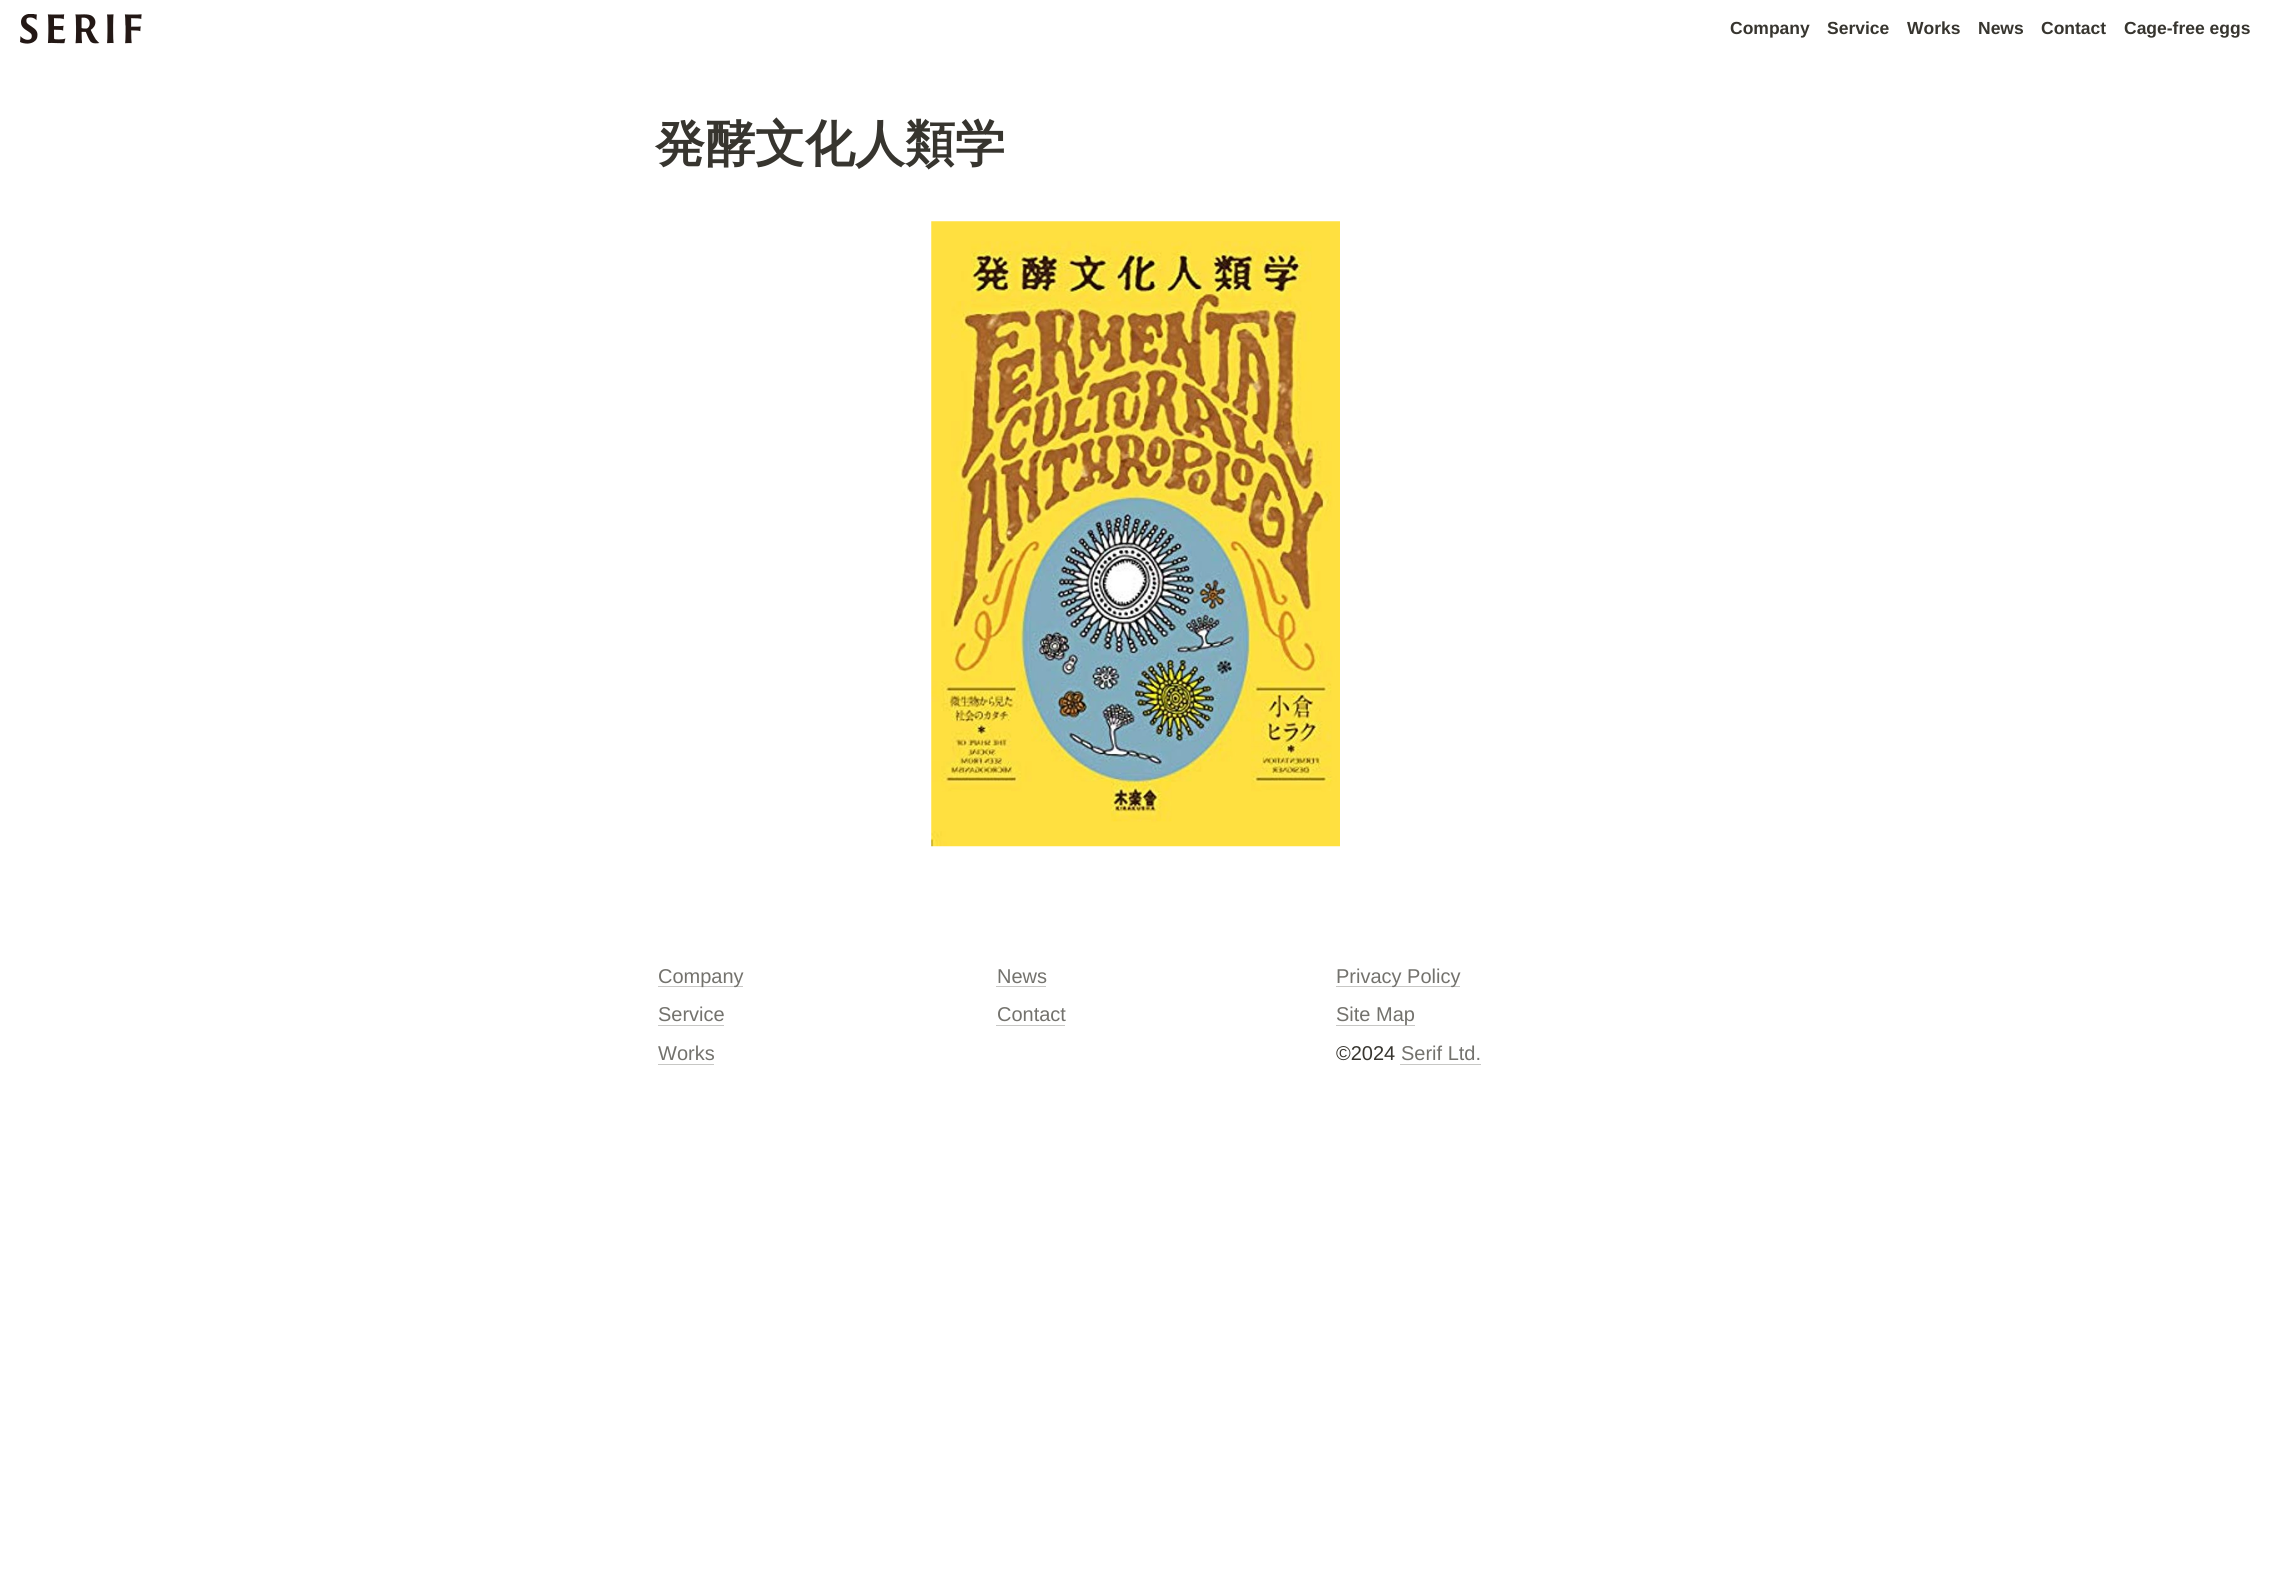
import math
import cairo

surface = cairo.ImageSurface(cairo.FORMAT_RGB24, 2269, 1574)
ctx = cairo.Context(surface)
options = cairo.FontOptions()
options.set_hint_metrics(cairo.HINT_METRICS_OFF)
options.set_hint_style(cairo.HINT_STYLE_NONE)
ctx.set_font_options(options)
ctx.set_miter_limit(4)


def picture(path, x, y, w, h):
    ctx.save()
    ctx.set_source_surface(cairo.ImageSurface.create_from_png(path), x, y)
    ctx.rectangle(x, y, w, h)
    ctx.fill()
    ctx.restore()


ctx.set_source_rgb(1, 1, 1)
ctx.paint()
picture("img1.png", 20, 14, 122, 30)
ctx.select_font_face("Liberation Sans", cairo.FONT_SLANT_NORMAL, cairo.FONT_WEIGHT_BOLD)
ctx.set_font_size(17.5)
ctx.set_source_rgb(0.216, 0.208, 0.184)
ctx.move_to(1730, 34)
ctx.show_text("Company")
ctx.move_to(1827, 34)
ctx.show_text("Service")
ctx.move_to(1907, 34)
ctx.show_text("Works")
ctx.move_to(1978, 34)
ctx.show_text("News")
ctx.move_to(2041, 34)
ctx.show_text("Contact")
ctx.move_to(2124, 34)
ctx.show_text("Cage-free eggs")
ctx.select_font_face("WenQuanYi Zen Hei", cairo.FONT_SLANT_NORMAL, cairo.FONT_WEIGHT_BOLD)
ctx.set_font_size(50)
ctx.move_to(655, 161)
ctx.show_text("発酵文化人類学")
picture("img2.png", 931, 221, 409, 626)
ctx.set_source_rgb(0.78, 0.78, 0.773)
ctx.rectangle(658, 986, 85, 1)
ctx.fill()
ctx.select_font_face("Liberation Sans")
ctx.set_font_size(20)
ctx.set_source_rgb(0.451, 0.447, 0.427)
ctx.move_to(658, 983)
ctx.show_text("Company")
ctx.move_to(658, 1021)
ctx.show_text("Service")
ctx.set_source_rgb(0.78, 0.78, 0.773)
ctx.rectangle(658, 1025, 66, 1)
ctx.fill()
ctx.set_source_rgb(0.451, 0.447, 0.427)
ctx.move_to(658, 1060)
ctx.show_text("Works")
ctx.set_source_rgb(0.78, 0.78, 0.773)
ctx.rectangle(658, 1064, 56, 1)
ctx.fill()
ctx.set_source_rgb(0.451, 0.447, 0.427)
ctx.move_to(997, 983)
ctx.show_text("News")
ctx.set_source_rgb(0.78, 0.78, 0.773)
ctx.rectangle(996, 986, 50, 1)
ctx.fill()
ctx.set_source_rgb(0.451, 0.447, 0.427)
ctx.move_to(997, 1021)
ctx.show_text("Contact")
ctx.set_source_rgb(0.78, 0.78, 0.773)
ctx.rectangle(996, 1025, 69, 1)
ctx.fill()
ctx.rectangle(1336, 986, 124, 1)
ctx.fill()
ctx.set_source_rgb(0.451, 0.447, 0.427)
ctx.move_to(1336, 983)
ctx.show_text("Privacy Policy")
ctx.set_source_rgb(0.78, 0.78, 0.773)
ctx.rectangle(1336, 1025, 79, 1)
ctx.fill()
ctx.set_source_rgb(0.451, 0.447, 0.427)
ctx.move_to(1336, 1021)
ctx.show_text("Site Map")
ctx.set_source_rgb(0.216, 0.208, 0.184)
ctx.move_to(1336, 1060)
ctx.show_text("©2024")
ctx.set_source_rgb(0.451, 0.447, 0.427)
ctx.move_to(1401, 1060)
ctx.show_text("Serif Ltd.")
ctx.set_source_rgb(0.78, 0.78, 0.773)
ctx.rectangle(1400, 1064, 81, 1)
ctx.fill()
surface.write_to_png("page.png")
